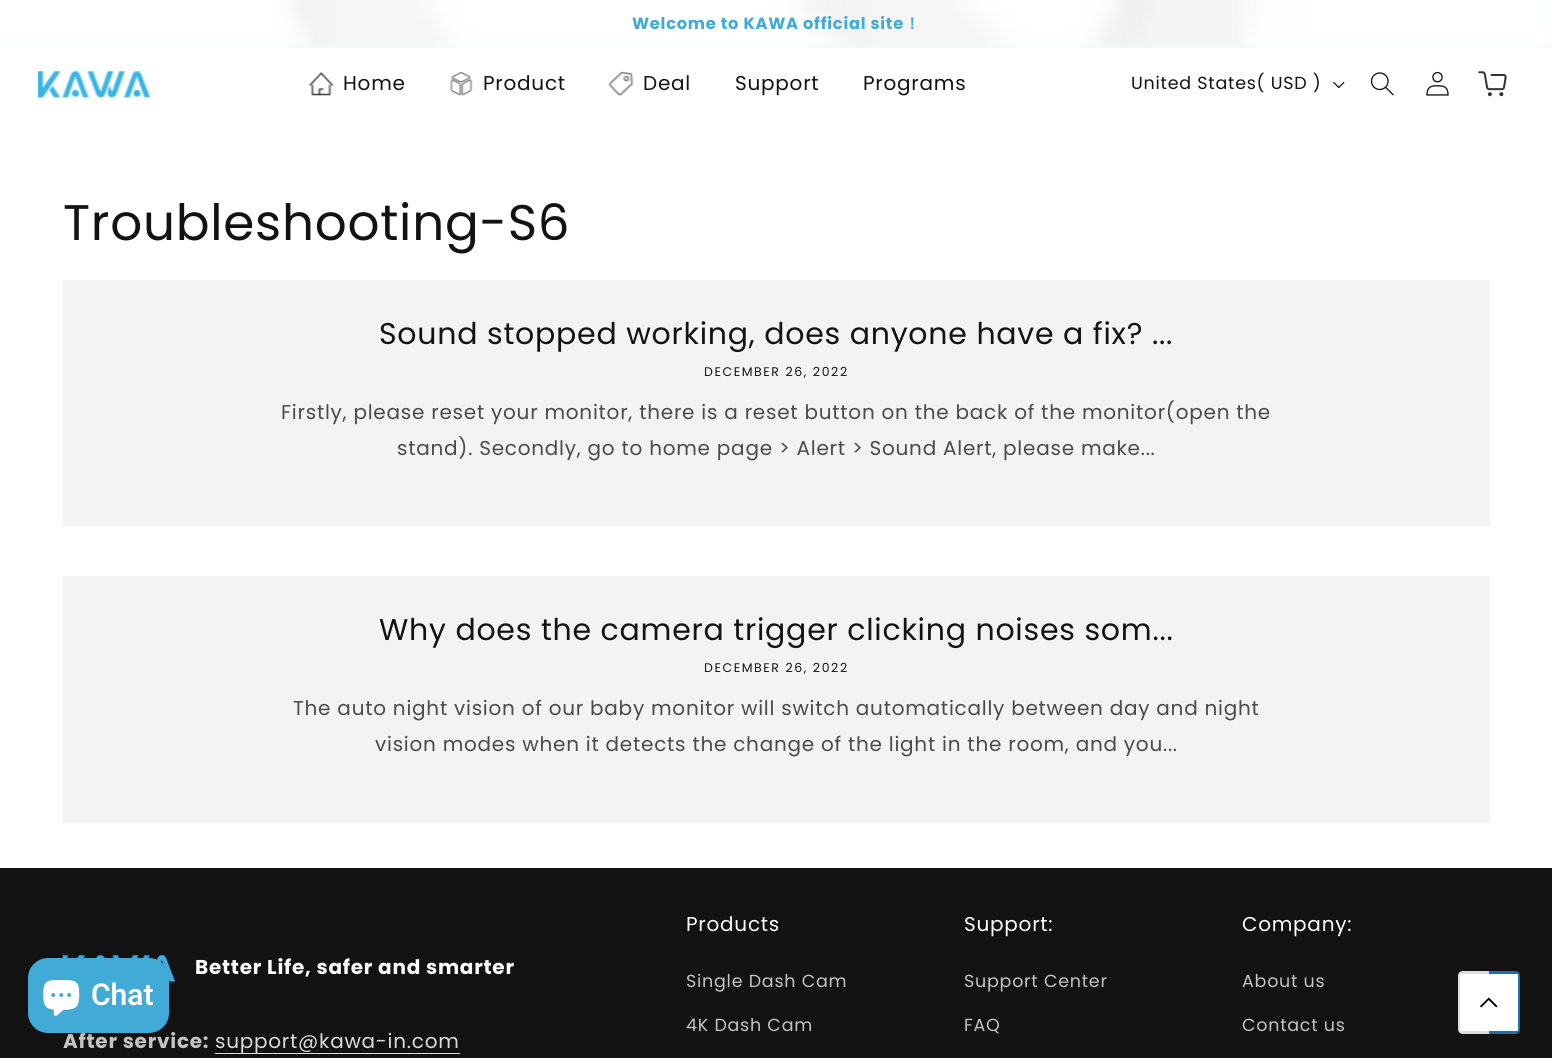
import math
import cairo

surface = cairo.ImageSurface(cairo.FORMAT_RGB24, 1552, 1058)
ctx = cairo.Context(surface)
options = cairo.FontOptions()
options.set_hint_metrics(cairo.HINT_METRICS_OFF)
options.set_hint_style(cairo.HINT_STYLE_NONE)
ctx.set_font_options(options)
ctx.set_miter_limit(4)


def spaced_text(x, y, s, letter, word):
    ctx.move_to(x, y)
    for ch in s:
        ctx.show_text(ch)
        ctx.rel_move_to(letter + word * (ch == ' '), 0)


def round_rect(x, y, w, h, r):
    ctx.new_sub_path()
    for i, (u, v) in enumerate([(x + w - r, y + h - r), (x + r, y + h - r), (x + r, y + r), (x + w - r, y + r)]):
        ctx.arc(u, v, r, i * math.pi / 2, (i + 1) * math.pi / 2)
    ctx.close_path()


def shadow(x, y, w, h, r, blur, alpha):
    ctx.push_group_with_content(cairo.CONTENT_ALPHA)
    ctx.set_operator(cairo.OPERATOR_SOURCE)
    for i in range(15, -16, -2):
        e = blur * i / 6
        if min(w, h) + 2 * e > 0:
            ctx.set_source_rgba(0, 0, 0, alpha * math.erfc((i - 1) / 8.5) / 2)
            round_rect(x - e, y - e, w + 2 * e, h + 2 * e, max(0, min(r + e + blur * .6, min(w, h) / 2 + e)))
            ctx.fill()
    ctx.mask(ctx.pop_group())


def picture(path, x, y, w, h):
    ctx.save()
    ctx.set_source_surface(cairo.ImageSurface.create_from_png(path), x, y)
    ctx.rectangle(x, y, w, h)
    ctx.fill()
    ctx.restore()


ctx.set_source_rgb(1, 1, 1)
ctx.paint()
ctx.set_source_rgb(0.957, 0.984, 0.988)
ctx.rectangle(0, 0, 1552, 48)
ctx.fill()
picture("img1.png", 0, 0, 1552, 48)
ctx.select_font_face("Poppins", cairo.FONT_SLANT_NORMAL, cairo.FONT_WEIGHT_BOLD)
ctx.set_font_size(16.25)
ctx.set_source_rgb(0.255, 0.667, 0.843)
spaced_text(632, 29, "Welcome to KAWA official site", 0.75, 0)
ctx.select_font_face("WenQuanYi Zen Hei", cairo.FONT_SLANT_NORMAL, cairo.FONT_WEIGHT_BOLD)
spaced_text(904, 29, "！", 0.75, 0)
picture("img2.png", 38, 71, 113, 27)
picture("img3.png", 309, 72, 25, 24)
ctx.select_font_face("Poppins")
ctx.set_font_size(20)
ctx.set_source_rgb(0.071, 0.071, 0.071)
spaced_text(343, 90, "Home", 0.75, 0)
picture("img4.png", 450, 72, 23, 24)
spaced_text(483, 90, "Product", 0.75, 0)
picture("img5.png", 608, 71, 26, 25)
spaced_text(643, 90, "Deal", 0.75, 0)
spaced_text(735, 90, "Support", 0.75, 0)
spaced_text(863, 90, "Programs", 0.75, 0)
ctx.set_font_size(17.5)
spaced_text(1131, 89, "United States( USD )", 0.75, 0)
picture("img6.png", 1333, 81, 12, 8)
picture("img7.png", 1370, 72, 24, 24)
picture("img8.png", 1426, 71, 23, 25)
picture("img9.png", 1478, 71, 29, 26)
ctx.set_font_size(50)
spaced_text(63, 240, "Troubleshooting-S6", 0.75, 0)
ctx.set_source_rgb(0.953, 0.953, 0.953)
ctx.rectangle(63, 280, 1427, 246)
ctx.fill()
ctx.set_font_size(30)
ctx.set_source_rgb(0.071, 0.071, 0.071)
spaced_text(379, 344, "Sound stopped working, does anyone have a fix? ...", 0.75, 0)
ctx.set_font_size(12.5)
spaced_text(704, 376, "DECEMBER 26, 2022", 1.6, 0)
ctx.set_font_size(20)
ctx.set_source_rgb(0.29, 0.29, 0.29)
spaced_text(281, 419, "Firstly, please reset your monitor, there is a reset button on the back of the monitor(open the", 0.75, 0)
spaced_text(397, 455, "stand). Secondly, go to home page > Alert > Sound Alert, please make...", 0.75, 0)
ctx.set_source_rgb(0.953, 0.953, 0.953)
ctx.rectangle(63, 576, 1427, 247)
ctx.fill()
ctx.set_font_size(30)
ctx.set_source_rgb(0.071, 0.071, 0.071)
spaced_text(379, 640, "Why does the camera trigger clicking noises som...", 0.75, 0)
ctx.set_font_size(12.5)
spaced_text(704, 672, "DECEMBER 26, 2022", 1.6, 0)
ctx.set_font_size(20)
ctx.set_source_rgb(0.29, 0.29, 0.29)
spaced_text(293, 715, "The auto night vision of our baby monitor will switch automatically between day and night", 0.75, 0)
spaced_text(375, 751, "vision modes when it detects the change of the light in the room, and you...", 0.75, 0)
ctx.set_source_rgb(0.071, 0.071, 0.071)
ctx.rectangle(0, 868, 1552, 190)
ctx.fill()
picture("img10.png", 62, 954, 113, 29)
ctx.select_font_face("Poppins", cairo.FONT_SLANT_NORMAL, cairo.FONT_WEIGHT_BOLD)
ctx.set_source_rgb(1, 1, 1)
spaced_text(195, 974, "Better Life, safer and smarter", 0.75, 0)
ctx.set_source_rgb(0.769, 0.769, 0.769)
spaced_text(63, 1048, "After service:", 0.75, 0)
ctx.set_source_rgb(0.859, 0.859, 0.859)
ctx.rectangle(215, 1053, 245, 1)
ctx.fill()
ctx.select_font_face("Poppins")
ctx.set_source_rgb(0.863, 0.863, 0.863)
spaced_text(215, 1048, "support@kawa-in.com", 0.75, 0)
ctx.set_source_rgb(1, 1, 1)
spaced_text(686, 931, "Products", 0.75, 0)
ctx.set_font_size(17.5)
ctx.set_source_rgb(0.769, 0.769, 0.769)
spaced_text(686, 987, "Single Dash Cam", 0.75, 0)
spaced_text(686, 1031, "4K Dash Cam", 0.75, 0)
ctx.set_font_size(20)
ctx.set_source_rgb(1, 1, 1)
spaced_text(964, 931, "Support:", 0.75, 0)
ctx.set_font_size(17.5)
ctx.set_source_rgb(0.769, 0.769, 0.769)
spaced_text(964, 987, "Support Center", 0.75, 0)
spaced_text(964, 1031, "FAQ", 0.75, 0)
ctx.set_font_size(20)
ctx.set_source_rgb(1, 1, 1)
spaced_text(1242, 931, "Company:", 0.75, 0)
ctx.set_font_size(17.5)
ctx.set_source_rgb(0.769, 0.769, 0.769)
spaced_text(1242, 987, "About us", 0.75, 0)
spaced_text(1242, 1031, "Contact us", 0.75, 0)
ctx.set_source_rgb(0.09, 0.451, 0.69)
ctx.new_path()
ctx.move_to(1489, 971)
ctx.line_to(1489, 1034)
ctx.line_to(1515, 1034)
ctx.curve_to(1518, 1034, 1520, 1032, 1520, 1029)
ctx.line_to(1520, 976)
ctx.curve_to(1520, 973, 1518, 971, 1515, 971)
ctx.close_path()
ctx.fill()
ctx.set_source_rgb(0.867, 0.867, 0.867)
ctx.new_path()
ctx.move_to(1463, 971)
ctx.curve_to(1460, 971, 1458, 973, 1458, 976)
ctx.line_to(1458, 1029)
ctx.curve_to(1458, 1032, 1460, 1034, 1463, 1034)
ctx.line_to(1489, 1034)
ctx.line_to(1489, 971)
ctx.close_path()
ctx.fill()
ctx.set_source_rgb(1, 1, 1)
ctx.rectangle(1460, 974, 58, 57)
ctx.fill()
picture("img11.png", 1480, 997, 18, 11)
picture("img12.png", 1480, 997, 18, 11)
ctx.set_source_rgb(0, 0, 0)
shadow(28, 958, 141, 75, 20, 3, 0.15)
ctx.set_source_rgb(0.255, 0.667, 0.843)
round_rect(28, 958, 141, 75, 20)
ctx.fill()
picture("img13.png", 43, 980, 37, 36)
ctx.select_font_face("Roboto SemiBold")
ctx.set_font_size(30)
ctx.set_source_rgb(1, 1, 1)
ctx.move_to(91, 1005)
ctx.show_text("Chat")
surface.write_to_png("page.png")
